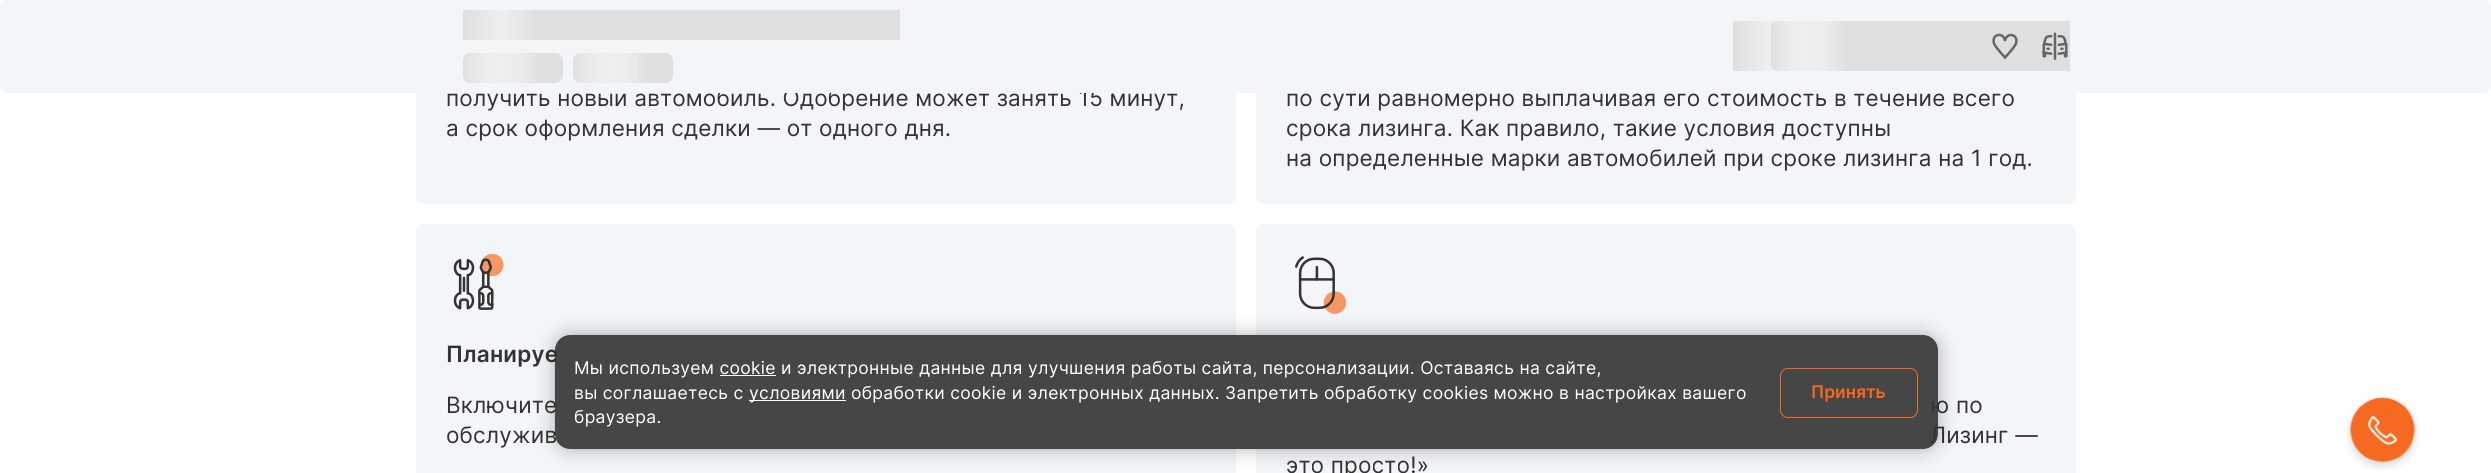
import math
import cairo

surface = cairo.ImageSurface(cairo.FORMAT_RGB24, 2491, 473)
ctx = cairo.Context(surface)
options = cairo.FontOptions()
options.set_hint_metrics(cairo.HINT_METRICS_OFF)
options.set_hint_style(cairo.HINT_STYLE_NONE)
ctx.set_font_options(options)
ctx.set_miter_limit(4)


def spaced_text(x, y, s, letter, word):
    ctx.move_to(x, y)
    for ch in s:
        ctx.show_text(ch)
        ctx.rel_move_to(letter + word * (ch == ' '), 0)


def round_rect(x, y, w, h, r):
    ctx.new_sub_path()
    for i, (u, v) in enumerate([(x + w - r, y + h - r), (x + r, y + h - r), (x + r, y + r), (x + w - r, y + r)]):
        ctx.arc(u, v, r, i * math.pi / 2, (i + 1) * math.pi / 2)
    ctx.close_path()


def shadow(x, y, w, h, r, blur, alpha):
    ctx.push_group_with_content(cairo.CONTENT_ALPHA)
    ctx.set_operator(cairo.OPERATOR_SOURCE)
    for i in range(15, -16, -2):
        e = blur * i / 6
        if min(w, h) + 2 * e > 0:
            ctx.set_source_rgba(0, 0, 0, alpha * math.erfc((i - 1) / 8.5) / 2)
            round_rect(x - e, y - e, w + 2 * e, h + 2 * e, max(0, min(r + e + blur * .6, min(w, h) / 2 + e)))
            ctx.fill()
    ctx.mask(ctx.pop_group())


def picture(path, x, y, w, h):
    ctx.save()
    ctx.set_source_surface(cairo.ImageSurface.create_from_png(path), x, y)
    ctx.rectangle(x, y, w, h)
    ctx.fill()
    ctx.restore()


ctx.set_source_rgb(1, 1, 1)
ctx.paint()
ctx.set_source_rgb(0.949, 0.961, 0.969)
round_rect(416, -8, 820, 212, 8)
ctx.fill()
ctx.select_font_face("Inter")
ctx.set_font_size(22.5)
ctx.set_source_rgb(0.2, 0.2, 0.2)
spaced_text(446, 106, "получить новый автомобиль. Одобрение может занять 15 минут,", 0.2, 0)
ctx.set_source_rgb(0.949, 0.961, 0.969)
round_rect(1256, -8, 820, 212, 8)
ctx.fill()
round_rect(0, 0, 2491, 93, 8)
ctx.fill()
gradient = cairo.LinearGradient(463, 25, 900, 25)
gradient.add_color_stop_rgba(0, 0.875, 0.875, 0.875, 1)
gradient.add_color_stop_rgba(0.09, 0.937, 0.937, 0.937, 1)
gradient.add_color_stop_rgba(0.17, 0.875, 0.875, 0.875, 1)
ctx.set_source(gradient)
ctx.rectangle(463, 10, 437, 30)
ctx.fill()
ctx.set_source_rgb(0.875, 0.875, 0.875)
round_rect(463, 53, 100, 30, 8)
ctx.fill()
gradient = cairo.LinearGradient(463, 68, 563, 68)
gradient.add_color_stop_rgba(0, 0.875, 0.875, 0.875, 1)
gradient.add_color_stop_rgba(0.38, 1, 1, 1, 0.5)
gradient.add_color_stop_rgba(0.75, 0.875, 0.875, 0.875, 1)
ctx.set_source(gradient)
round_rect(463, 53, 100, 30, 8)
ctx.fill()
ctx.set_source_rgb(0.875, 0.875, 0.875)
round_rect(573, 53, 100, 30, 8)
ctx.fill()
gradient = cairo.LinearGradient(573, 68, 673, 68)
gradient.add_color_stop_rgba(0, 0.875, 0.875, 0.875, 1)
gradient.add_color_stop_rgba(0.38, 1, 1, 1, 0.5)
gradient.add_color_stop_rgba(0.75, 0.875, 0.875, 0.875, 1)
ctx.set_source(gradient)
round_rect(573, 53, 100, 30, 8)
ctx.fill()
gradient = cairo.LinearGradient(1733, 46, 2070, 46)
gradient.add_color_stop_rgba(0, 0.875, 0.875, 0.875, 1)
gradient.add_color_stop_rgba(0.11, 0.937, 0.937, 0.937, 1)
gradient.add_color_stop_rgba(0.22, 0.875, 0.875, 0.875, 1)
ctx.set_source(gradient)
ctx.rectangle(1733, 21, 337, 50)
ctx.fill()
ctx.set_source_rgb(0.875, 0.875, 0.875)
round_rect(1771, 21, 169, 50, 8)
ctx.fill()
gradient = cairo.LinearGradient(1771, 46, 1940, 46)
gradient.add_color_stop_rgba(0, 0.875, 0.875, 0.875, 1)
gradient.add_color_stop_rgba(0.22, 1, 1, 1, 0.5)
gradient.add_color_stop_rgba(0.44, 0.875, 0.875, 0.875, 1)
ctx.set_source(gradient)
round_rect(1771, 21, 169, 50, 8)
ctx.fill()
picture("img1.png", 1992, 33, 26, 26)
picture("img2.png", 2042, 32, 26, 28)
ctx.set_source_rgb(0.2, 0.2, 0.2)
spaced_text(446, 136, "а срок оформления сделки — от одного дня.", 0.2, 0)
spaced_text(1286, 106, "по сути равномерно выплачивая его стоимость в течение всего", 0.2, 0)
spaced_text(1286, 136, "срока лизинга. Как правило, такие условия доступны", 0.2, 0)
spaced_text(1286, 166, "на определенные марки автомобилей при сроке лизинга на 1 год.", 0.2, 0)
ctx.set_source_rgb(0.949, 0.961, 0.969)
round_rect(416, 224, 820, 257, 8)
ctx.fill()
picture("img3.png", 453, 254, 51, 56)
ctx.select_font_face("Inter SemiBold")
ctx.set_source_rgb(0.2, 0.2, 0.2)
spaced_text(446, 362, "Планируе", 0.2, 0)
ctx.select_font_face("Inter")
spaced_text(446, 413, "Включите", 0.2, 0)
spaced_text(446, 443, "обслужив", 0.2, 0)
ctx.set_source_rgb(0.949, 0.961, 0.969)
round_rect(1256, 224, 820, 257, 8)
ctx.fill()
picture("img4.png", 1295, 256, 51, 58)
ctx.set_source_rgb(0.2, 0.2, 0.2)
spaced_text(1931, 413, "ю по", 0.2, 0)
spaced_text(1930, 443, "Лизинг —", 0.2, 0)
spaced_text(1286, 473, "это просто!»", 0.2, 0)
ctx.save()
ctx.set_fill_rule(cairo.FILL_RULE_EVEN_ODD)
ctx.new_path()
ctx.move_to(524, 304)
ctx.line_to(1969, 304)
ctx.line_to(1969, 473)
ctx.line_to(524, 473)
ctx.close_path()
ctx.move_to(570, 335)
ctx.line_to(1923, 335)
ctx.curve_to(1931.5, 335, 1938, 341.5, 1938, 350)
ctx.line_to(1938, 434)
ctx.curve_to(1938, 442.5, 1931.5, 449, 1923, 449)
ctx.line_to(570, 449)
ctx.curve_to(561.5, 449, 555, 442.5, 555, 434)
ctx.line_to(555, 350)
ctx.curve_to(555, 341.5, 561.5, 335, 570, 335)
ctx.close_path()
ctx.clip()
ctx.set_source_rgb(0, 0, 0)
shadow(555, 335, 1383, 114, 15, 10, 0.29)
ctx.restore()
ctx.set_source_rgba(0.2, 0.2, 0.2, 0.9)
round_rect(555, 335, 1383, 114, 15)
ctx.fill()
ctx.set_font_size(17.5)
ctx.set_source_rgb(1, 1, 1)
spaced_text(574, 374, "Мы используем cookie и электронные данные для улучшения работы сайта, персонализации. Оставаясь на сайте,", 0.31, 0)
ctx.rectangle(720, 375, 56, 1)
ctx.fill()
spaced_text(574, 399, "вы соглашаетесь с", 0.31, 0)
ctx.rectangle(749, 400, 97, 1)
ctx.fill()
spaced_text(749, 399, "условиями обработки cookie и электронных данных. Запретить обработку cookies можно в настройках вашего", 0.31, 0)
spaced_text(574, 423, "браузера.", 0.31, 0)
round_rect(1780.5, 368.5, 137, 49, 7.5)
ctx.set_source_rgb(0.961, 0.412, 0.125)
ctx.set_line_width(1)
ctx.stroke()
ctx.select_font_face("Inter SemiBold")
ctx.move_to(1811, 398)
ctx.show_text("Принять")
picture("img5.png", 2346, 397, 73, 73)
surface.write_to_png("page.png")
